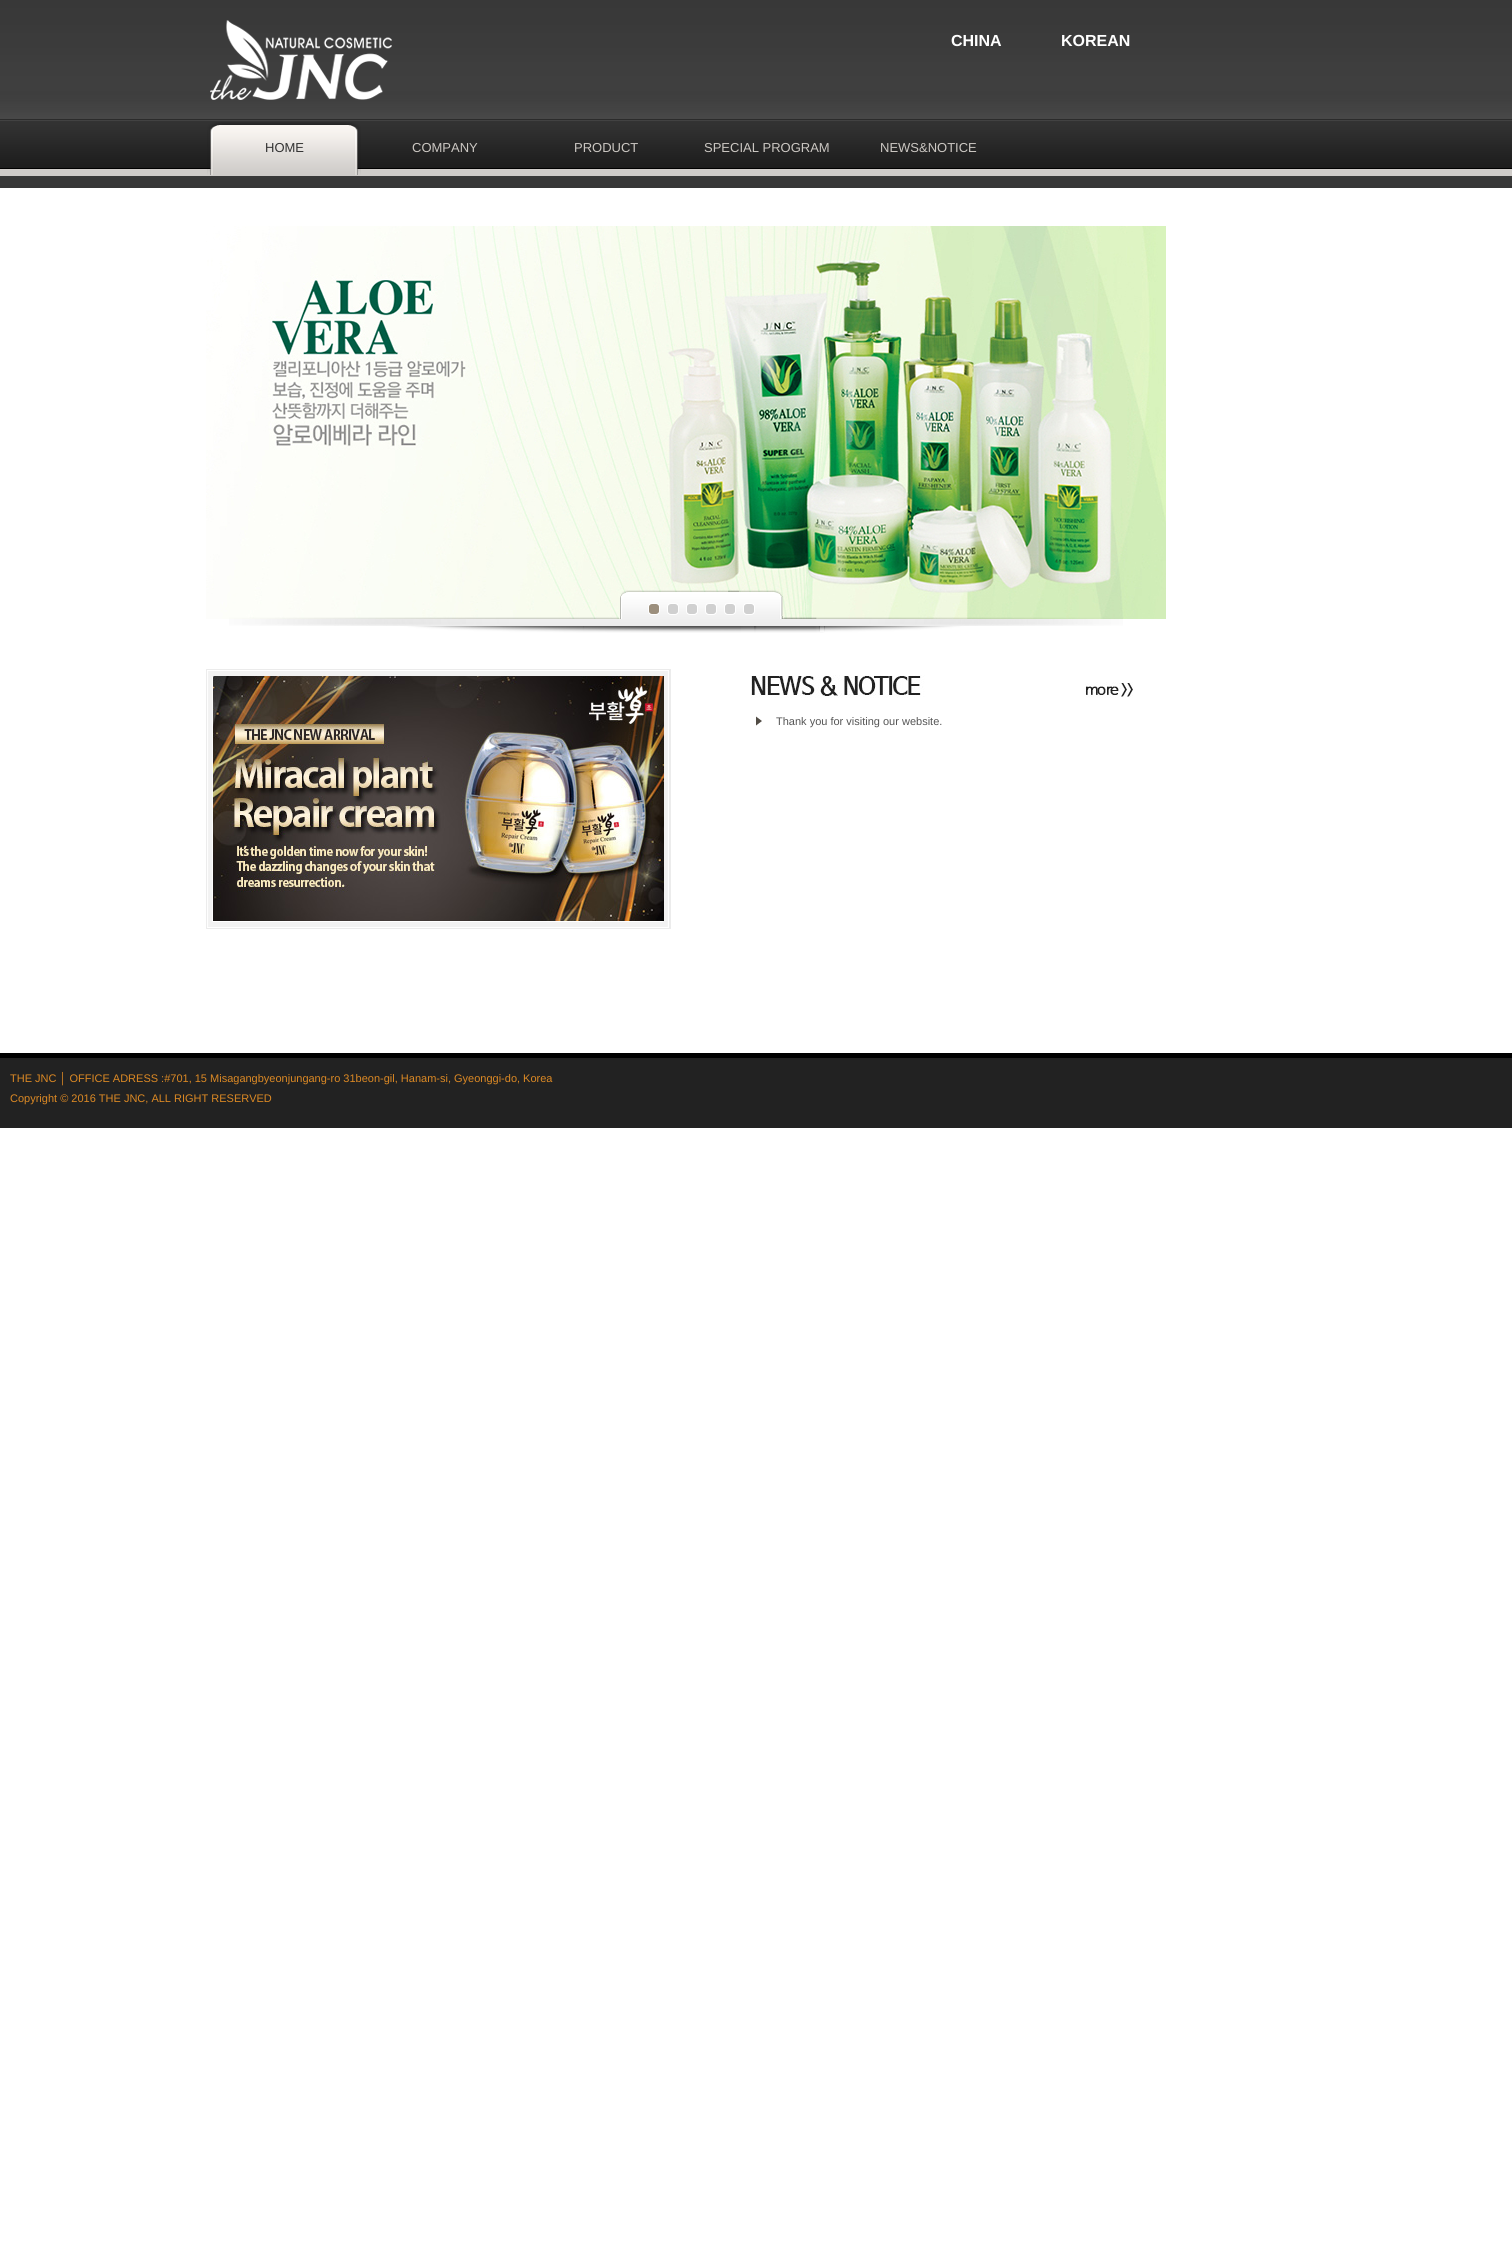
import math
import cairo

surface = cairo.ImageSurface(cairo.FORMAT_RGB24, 1512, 2264)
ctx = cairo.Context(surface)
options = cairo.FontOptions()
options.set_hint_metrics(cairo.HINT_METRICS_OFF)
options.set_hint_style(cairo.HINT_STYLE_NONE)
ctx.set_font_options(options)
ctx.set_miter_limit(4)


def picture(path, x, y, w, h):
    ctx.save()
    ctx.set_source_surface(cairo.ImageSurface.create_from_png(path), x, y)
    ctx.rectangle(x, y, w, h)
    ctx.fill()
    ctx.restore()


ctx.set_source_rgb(1, 1, 1)
ctx.paint()
picture("img1.png", 0, 0, 1512, 188)
picture("img2.png", 210, 20, 182, 80)
ctx.select_font_face("Liberation Sans", cairo.FONT_SLANT_NORMAL, cairo.FONT_WEIGHT_BOLD)
ctx.set_font_size(16)
ctx.set_source_rgb(1, 1, 1)
ctx.move_to(951, 46)
ctx.show_text("CHINA")
ctx.move_to(1061, 46)
ctx.show_text("KOREAN")
picture("img3.png", 207, 122, 154, 53)
ctx.select_font_face("Liberation Sans")
ctx.set_font_size(13)
ctx.set_source_rgb(0.2, 0.2, 0.2)
ctx.move_to(265, 152)
ctx.show_text("HOME")
ctx.set_source_rgb(0.796, 0.78, 0.761)
ctx.move_to(412, 152)
ctx.show_text("COMPANY")
ctx.move_to(574, 152)
ctx.show_text("PRODUCT")
ctx.move_to(704, 152)
ctx.show_text("SPECIAL PROGRAM")
ctx.move_to(880, 152)
ctx.show_text("NEWS&NOTICE")
picture("img4.png", 206, 226, 960, 393)
picture("img7.png", 229, 590, 894, 43)
picture("img5.png", 648, 603, 12, 12)
picture("img6.png", 667, 603, 12, 12)
picture("img6.png", 686, 603, 12, 12)
picture("img6.png", 705, 603, 12, 12)
picture("img6.png", 724, 603, 12, 12)
picture("img6.png", 743, 603, 12, 12)
picture("img8.png", 206, 669, 465, 260)
picture("img9.png", 213, 676, 451, 245)
picture("img10.png", 751, 675, 382, 23)
picture("img11.png", 756, 716, 6, 10)
ctx.set_font_size(11)
ctx.set_source_rgb(0.333, 0.333, 0.333)
ctx.move_to(776, 725)
ctx.show_text("Thank you for visiting our website.")
ctx.set_source_rgb(0.133, 0.133, 0.133)
ctx.rectangle(0, 1058, 1512, 70)
ctx.fill()
ctx.set_source_rgb(0, 0, 0)
ctx.rectangle(0, 1053, 1512, 5)
ctx.fill()
ctx.set_source_rgb(0.863, 0.537, 0.141)
ctx.move_to(10, 1082)
ctx.show_text("THE JNC │ OFFICE ADRESS :#701, 15 Misagangbyeonjungang-ro 31beon-gil, Hanam-si, Gyeonggi-do, Korea")
ctx.move_to(10, 1102)
ctx.show_text("Copyright © 2016 THE JNC, ALL RIGHT RESERVED")
surface.write_to_png("page.png")
